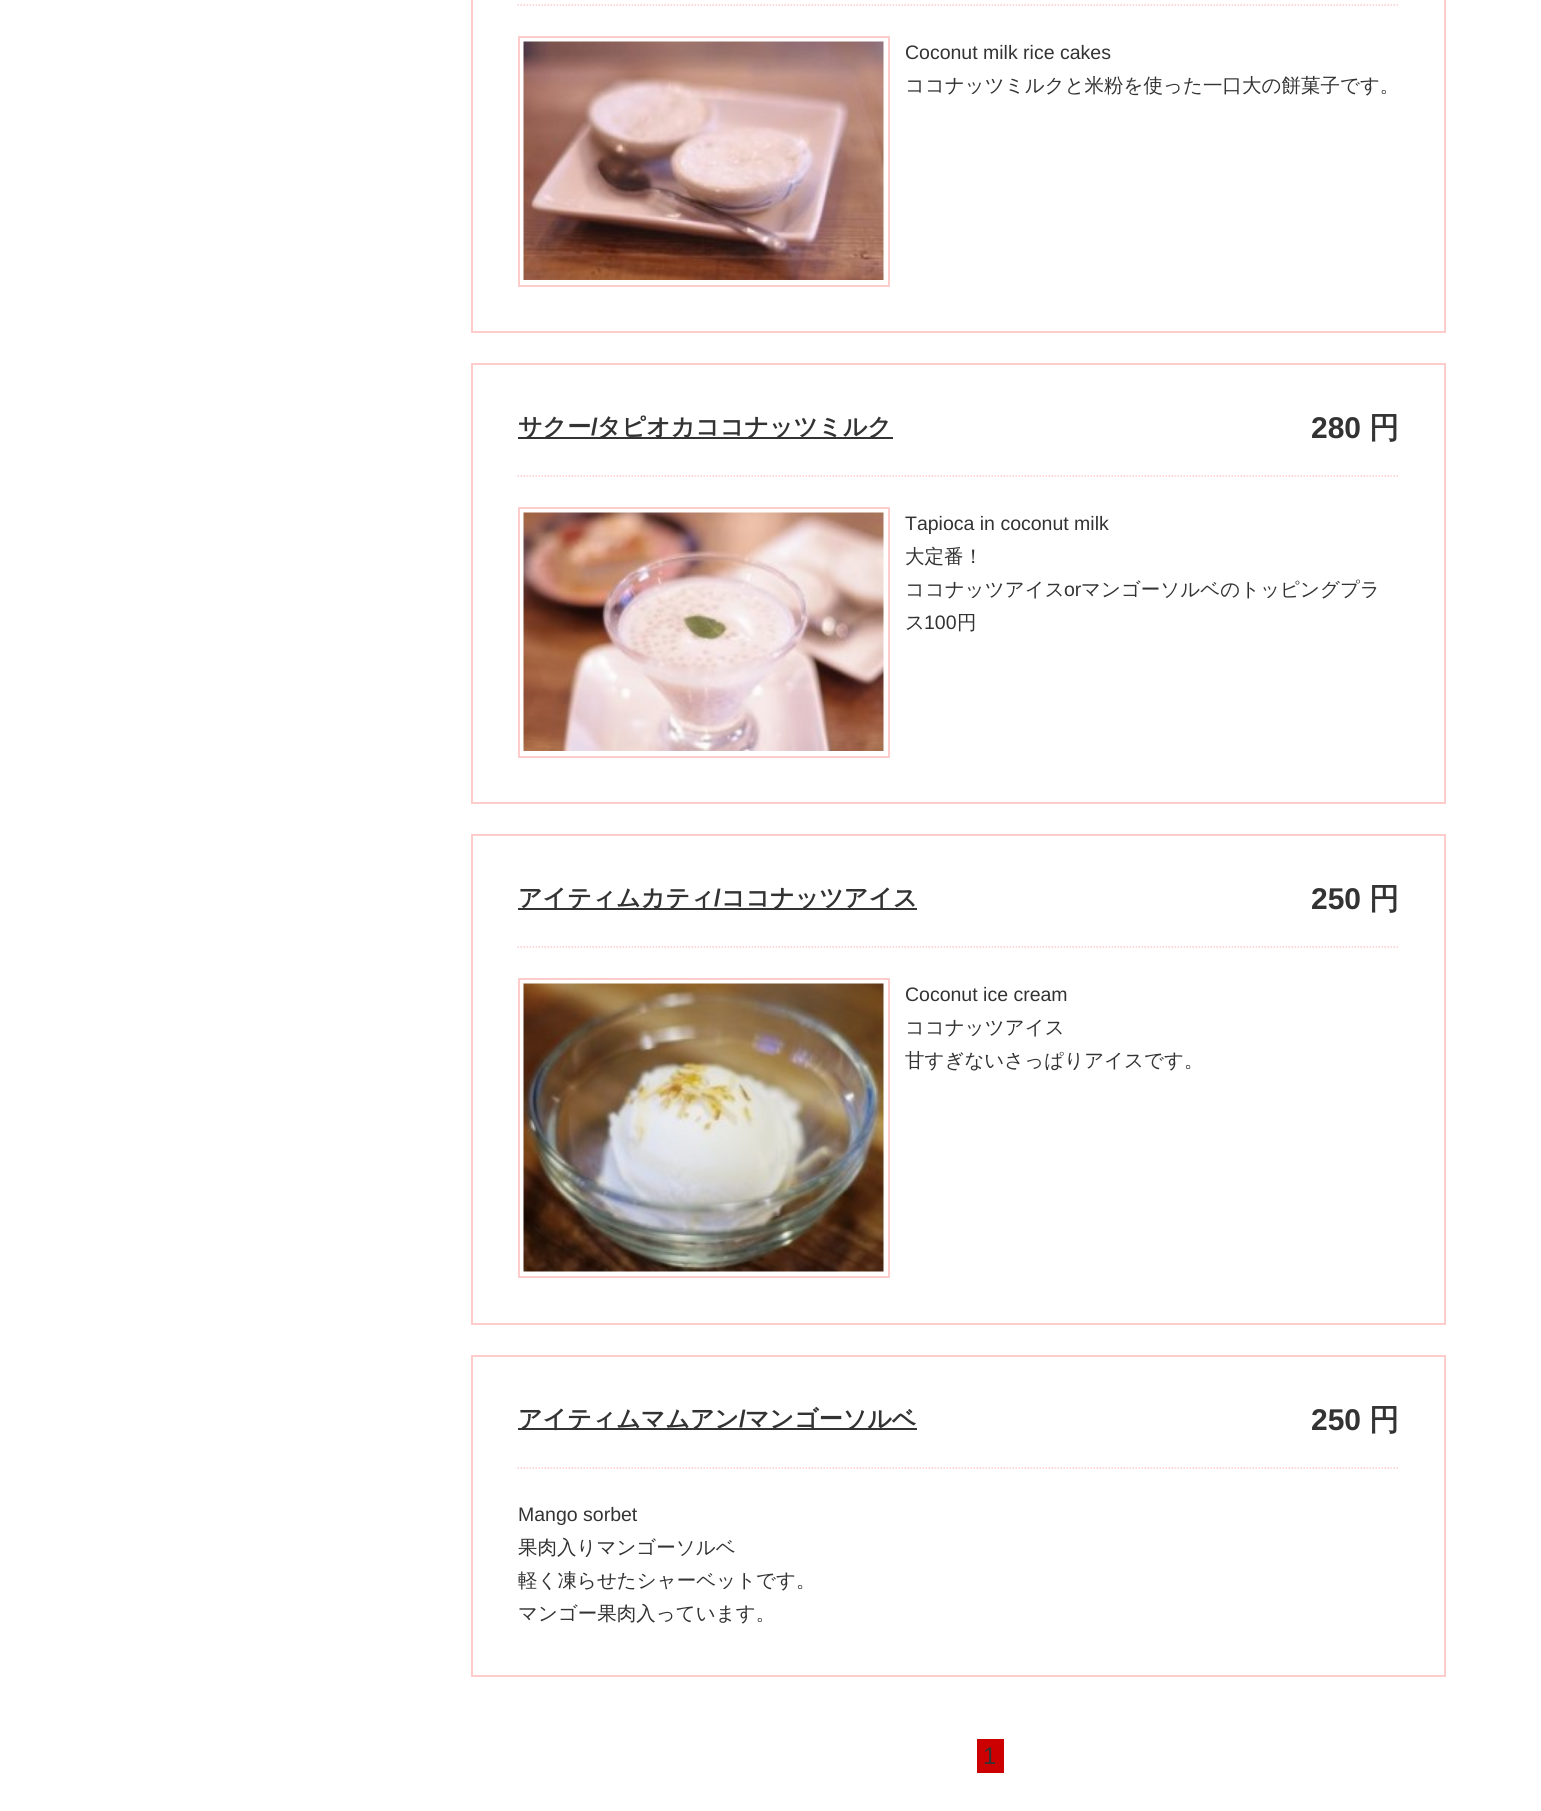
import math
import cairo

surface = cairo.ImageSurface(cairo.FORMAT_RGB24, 1541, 1811)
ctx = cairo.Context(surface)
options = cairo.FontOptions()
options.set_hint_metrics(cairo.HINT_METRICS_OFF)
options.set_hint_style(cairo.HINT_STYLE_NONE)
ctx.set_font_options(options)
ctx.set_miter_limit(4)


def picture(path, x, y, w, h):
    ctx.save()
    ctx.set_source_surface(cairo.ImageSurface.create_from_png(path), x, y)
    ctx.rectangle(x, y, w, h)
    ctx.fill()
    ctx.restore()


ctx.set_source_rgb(1, 1, 1)
ctx.paint()
ctx.rectangle(472, -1, 973, 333)
ctx.set_source_rgb(1, 0.8, 0.8)
ctx.stroke()
ctx.new_path()
ctx.move_to(517.5, 5)
ctx.line_to(1399.5, 5)
ctx.set_line_width(1.5)
ctx.set_dash([1.5, 1.5])
ctx.stroke()
ctx.rectangle(519, 37, 370, 249)
ctx.set_line_width(2)
ctx.set_dash([])
ctx.stroke()
picture("img1.png", 523, 41, 361, 239)
ctx.select_font_face("Liberation Sans")
ctx.set_font_size(19.5)
ctx.set_source_rgb(0.2, 0.2, 0.2)
ctx.move_to(905, 59)
ctx.show_text("Coconut milk rice cakes")
ctx.select_font_face("WenQuanYi Zen Hei Medium")
ctx.move_to(905, 92)
ctx.show_text("ココナッツミルクと米粉を使った一口大の餅菓子です。")
ctx.rectangle(472, 364, 973, 439)
ctx.set_source_rgb(1, 0.8, 0.8)
ctx.stroke()
ctx.set_source_rgb(0.2, 0.2, 0.2)
ctx.rectangle(518, 437, 375, 2)
ctx.fill()
ctx.select_font_face("WenQuanYi Zen Hei", cairo.FONT_SLANT_NORMAL, cairo.FONT_WEIGHT_BOLD)
ctx.set_font_size(24)
ctx.move_to(518, 435)
ctx.show_text("サクー")
ctx.select_font_face("Liberation Sans", cairo.FONT_SLANT_NORMAL, cairo.FONT_WEIGHT_BOLD)
ctx.move_to(591, 435)
ctx.show_text("/")
ctx.select_font_face("WenQuanYi Zen Hei", cairo.FONT_SLANT_NORMAL, cairo.FONT_WEIGHT_BOLD)
ctx.move_to(597, 435)
ctx.show_text("タピオカココナッツミルク")
ctx.select_font_face("Liberation Sans", cairo.FONT_SLANT_NORMAL, cairo.FONT_WEIGHT_BOLD)
ctx.set_font_size(30)
ctx.move_to(1311, 438)
ctx.show_text("280")
ctx.select_font_face("WenQuanYi Zen Hei", cairo.FONT_SLANT_NORMAL, cairo.FONT_WEIGHT_BOLD)
ctx.move_to(1369, 438)
ctx.show_text("円")
ctx.new_path()
ctx.move_to(517.5, 476)
ctx.line_to(1399.5, 476)
ctx.set_source_rgb(1, 0.8, 0.8)
ctx.set_line_width(1.5)
ctx.set_dash([1.5, 1.5])
ctx.stroke()
ctx.rectangle(519, 508, 370, 249)
ctx.set_line_width(2)
ctx.set_dash([])
ctx.stroke()
picture("img2.png", 523, 512, 361, 239)
ctx.select_font_face("Liberation Sans")
ctx.set_font_size(19.5)
ctx.set_source_rgb(0.2, 0.2, 0.2)
ctx.move_to(905, 530)
ctx.show_text("Tapioca in coconut milk")
ctx.select_font_face("WenQuanYi Zen Hei Medium")
ctx.move_to(905, 563)
ctx.show_text("大定番！")
ctx.move_to(905, 596)
ctx.show_text("ココナッツアイス")
ctx.select_font_face("Liberation Sans")
ctx.move_to(1064, 596)
ctx.show_text("or")
ctx.select_font_face("WenQuanYi Zen Hei Medium")
ctx.move_to(1081, 596)
ctx.show_text("マンゴーソルベのトッピングプラ")
ctx.move_to(905, 629)
ctx.show_text("ス")
ctx.select_font_face("Liberation Sans")
ctx.move_to(924, 629)
ctx.show_text("100")
ctx.select_font_face("WenQuanYi Zen Hei Medium")
ctx.move_to(957, 629)
ctx.show_text("円")
ctx.rectangle(472, 835, 973, 489)
ctx.set_source_rgb(1, 0.8, 0.8)
ctx.stroke()
ctx.set_source_rgb(0.2, 0.2, 0.2)
ctx.rectangle(518, 908, 399, 2)
ctx.fill()
ctx.select_font_face("WenQuanYi Zen Hei", cairo.FONT_SLANT_NORMAL, cairo.FONT_WEIGHT_BOLD)
ctx.set_font_size(24)
ctx.move_to(518, 906)
ctx.show_text("アイティムカティ")
ctx.select_font_face("Liberation Sans", cairo.FONT_SLANT_NORMAL, cairo.FONT_WEIGHT_BOLD)
ctx.move_to(714, 906)
ctx.show_text("/")
ctx.select_font_face("WenQuanYi Zen Hei", cairo.FONT_SLANT_NORMAL, cairo.FONT_WEIGHT_BOLD)
ctx.move_to(721, 906)
ctx.show_text("ココナッツアイス")
ctx.select_font_face("Liberation Sans", cairo.FONT_SLANT_NORMAL, cairo.FONT_WEIGHT_BOLD)
ctx.set_font_size(30)
ctx.move_to(1311, 909)
ctx.show_text("250")
ctx.select_font_face("WenQuanYi Zen Hei", cairo.FONT_SLANT_NORMAL, cairo.FONT_WEIGHT_BOLD)
ctx.move_to(1369, 909)
ctx.show_text("円")
ctx.new_path()
ctx.move_to(517.5, 947)
ctx.line_to(1399.5, 947)
ctx.set_source_rgb(1, 0.8, 0.8)
ctx.set_line_width(1.5)
ctx.set_dash([1.5, 1.5])
ctx.stroke()
ctx.rectangle(519, 979, 370, 298)
ctx.set_line_width(2)
ctx.set_dash([])
ctx.stroke()
picture("img3.png", 523, 983, 361, 289)
ctx.select_font_face("Liberation Sans")
ctx.set_font_size(19.5)
ctx.set_source_rgb(0.2, 0.2, 0.2)
ctx.move_to(905, 1001)
ctx.show_text("Coconut ice cream")
ctx.select_font_face("WenQuanYi Zen Hei Medium")
ctx.move_to(905, 1034)
ctx.show_text("ココナッツアイス")
ctx.move_to(905, 1067)
ctx.show_text("甘すぎないさっぱりアイスです。")
ctx.rectangle(472, 1356, 973, 320)
ctx.set_source_rgb(1, 0.8, 0.8)
ctx.stroke()
ctx.set_source_rgb(0.2, 0.2, 0.2)
ctx.rectangle(518, 1428, 399, 2)
ctx.fill()
ctx.select_font_face("WenQuanYi Zen Hei", cairo.FONT_SLANT_NORMAL, cairo.FONT_WEIGHT_BOLD)
ctx.set_font_size(24)
ctx.move_to(518, 1427)
ctx.show_text("アイティムマムアン")
ctx.select_font_face("Liberation Sans", cairo.FONT_SLANT_NORMAL, cairo.FONT_WEIGHT_BOLD)
ctx.move_to(739, 1427)
ctx.show_text("/")
ctx.select_font_face("WenQuanYi Zen Hei", cairo.FONT_SLANT_NORMAL, cairo.FONT_WEIGHT_BOLD)
ctx.move_to(745, 1427)
ctx.show_text("マンゴーソルベ")
ctx.select_font_face("Liberation Sans", cairo.FONT_SLANT_NORMAL, cairo.FONT_WEIGHT_BOLD)
ctx.set_font_size(30)
ctx.move_to(1311, 1430)
ctx.show_text("250")
ctx.select_font_face("WenQuanYi Zen Hei", cairo.FONT_SLANT_NORMAL, cairo.FONT_WEIGHT_BOLD)
ctx.move_to(1369, 1430)
ctx.show_text("円")
ctx.new_path()
ctx.move_to(517.5, 1468)
ctx.line_to(1399.5, 1468)
ctx.set_source_rgb(1, 0.8, 0.8)
ctx.set_line_width(1.5)
ctx.set_dash([1.5, 1.5])
ctx.stroke()
ctx.select_font_face("Liberation Sans")
ctx.set_font_size(19.5)
ctx.set_source_rgb(0.2, 0.2, 0.2)
ctx.move_to(518, 1521)
ctx.show_text("Mango sorbet")
ctx.select_font_face("WenQuanYi Zen Hei Medium")
ctx.move_to(518, 1554)
ctx.show_text("果肉入りマンゴーソルベ")
ctx.move_to(518, 1587)
ctx.show_text("軽く凍らせたシャーベットです。")
ctx.move_to(518, 1620)
ctx.show_text("マンゴー果肉入っています。")
ctx.set_source_rgb(0.8, 0, 0)
ctx.rectangle(977, 1739, 27, 34)
ctx.fill()
ctx.select_font_face("Liberation Sans")
ctx.set_font_size(24)
ctx.set_source_rgb(0.2, 0.2, 0.2)
ctx.move_to(983, 1764)
ctx.show_text("1")
surface.write_to_png("page.png")
